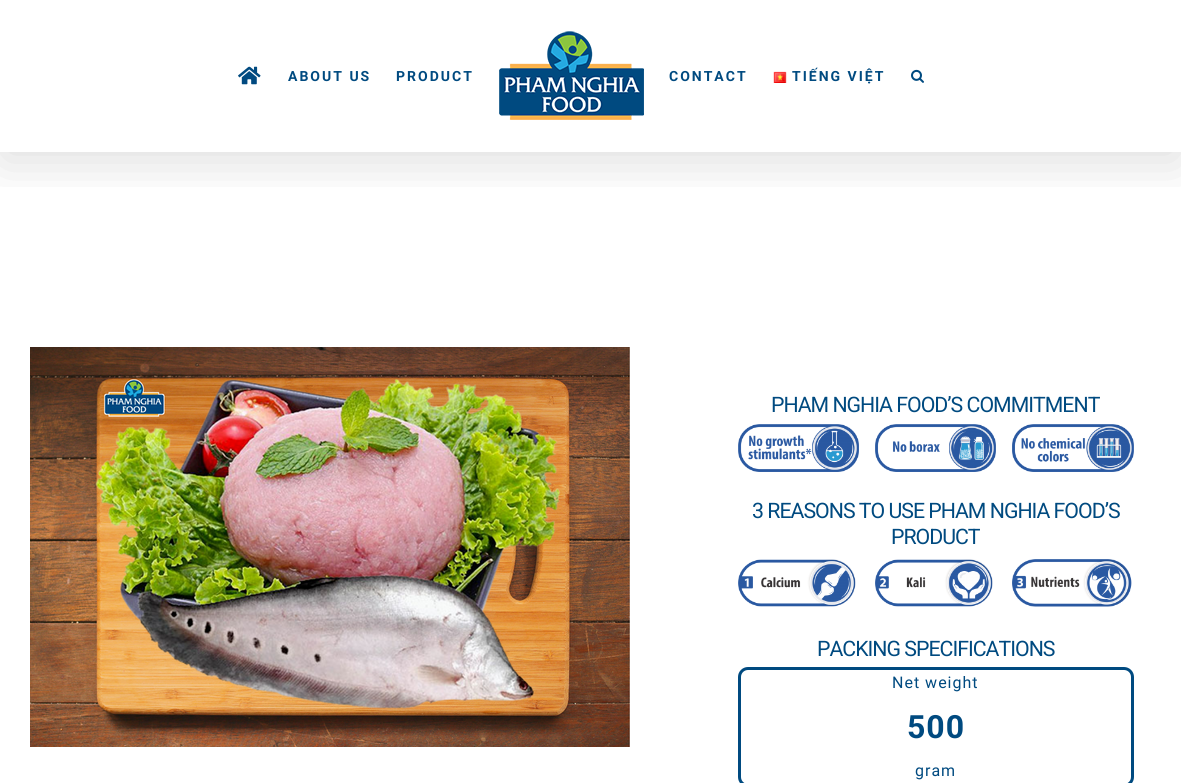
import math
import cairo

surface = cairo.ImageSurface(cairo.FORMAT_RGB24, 1181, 783)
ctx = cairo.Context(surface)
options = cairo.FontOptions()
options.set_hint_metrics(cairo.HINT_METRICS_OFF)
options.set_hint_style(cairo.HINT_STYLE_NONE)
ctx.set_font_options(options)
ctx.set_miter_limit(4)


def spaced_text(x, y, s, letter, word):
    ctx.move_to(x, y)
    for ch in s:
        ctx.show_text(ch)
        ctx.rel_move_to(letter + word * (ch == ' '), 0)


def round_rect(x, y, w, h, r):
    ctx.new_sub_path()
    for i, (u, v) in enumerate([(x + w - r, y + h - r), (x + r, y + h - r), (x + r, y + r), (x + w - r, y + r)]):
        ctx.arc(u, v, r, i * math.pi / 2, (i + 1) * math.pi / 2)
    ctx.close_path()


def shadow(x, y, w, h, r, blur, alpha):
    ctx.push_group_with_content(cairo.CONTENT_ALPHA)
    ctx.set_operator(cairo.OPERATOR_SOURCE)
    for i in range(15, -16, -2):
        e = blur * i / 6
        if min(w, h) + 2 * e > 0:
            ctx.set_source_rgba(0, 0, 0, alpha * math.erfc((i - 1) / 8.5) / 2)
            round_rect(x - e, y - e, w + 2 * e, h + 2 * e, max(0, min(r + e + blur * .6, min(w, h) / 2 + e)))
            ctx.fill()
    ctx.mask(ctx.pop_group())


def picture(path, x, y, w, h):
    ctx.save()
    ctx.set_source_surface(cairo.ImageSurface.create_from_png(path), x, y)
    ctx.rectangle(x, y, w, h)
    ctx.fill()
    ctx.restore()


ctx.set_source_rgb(1, 1, 1)
ctx.paint()
ctx.save()
ctx.rectangle(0, 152, 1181, 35)
ctx.clip()
ctx.set_source_rgb(0, 0, 0)
shadow(2, 12, 1177, 148, 0, 25, 0.14)
ctx.restore()
picture("img1.png", 238, 66, 23, 19)
ctx.select_font_face("Roboto", cairo.FONT_SLANT_NORMAL, cairo.FONT_WEIGHT_BOLD)
ctx.set_font_size(14)
ctx.set_source_rgb(0, 0.29, 0.502)
spaced_text(288, 81, "ABOUT US", 2, 0)
spaced_text(396, 81, "PRODUCT", 2, 0)
picture("img2.png", 499, 31, 145, 89)
spaced_text(669, 81, "CONTACT", 2, 0)
picture("img3.png", 773, 71, 14, 12)
spaced_text(792, 81, "TIẾNG VIỆT", 2, 0)
picture("img4.png", 911, 69, 13, 14)
picture("img5.png", 30, 347, 600, 400)
ctx.select_font_face("Roboto")
ctx.set_font_size(21.3)
spaced_text(771, 412, "PHAM NGHIA FOOD’S COMMITMENT", -1, 0)
picture("img6.png", 738, 424, 121, 48)
picture("img7.png", 875, 424, 121, 48)
picture("img8.png", 1012, 424, 122, 48)
spaced_text(752, 518, "3 REASONS TO USE PHAM NGHIA FOOD’S", -1, 0)
spaced_text(891, 544, "PRODUCT", -1, 0)
picture("img9.png", 738, 559, 118, 48)
picture("img10.png", 875, 559, 118, 48)
picture("img11.png", 1012, 559, 120, 48)
spaced_text(817, 656, "PACKING SPECIFICATIONS", -1, 0)
round_rect(739.5, 668.5, 393, 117, 8.5)
ctx.set_line_width(3)
ctx.stroke()
ctx.set_font_size(16)
spaced_text(892, 688, "Net weight", 1, 0)
ctx.select_font_face("Roboto", cairo.FONT_SLANT_NORMAL, cairo.FONT_WEIGHT_BOLD)
ctx.set_font_size(32)
spaced_text(907, 738, "500", 1, 0)
ctx.select_font_face("Roboto")
ctx.set_font_size(16)
spaced_text(915, 776, "gram", 1, 0)
surface.write_to_png("page.png")
